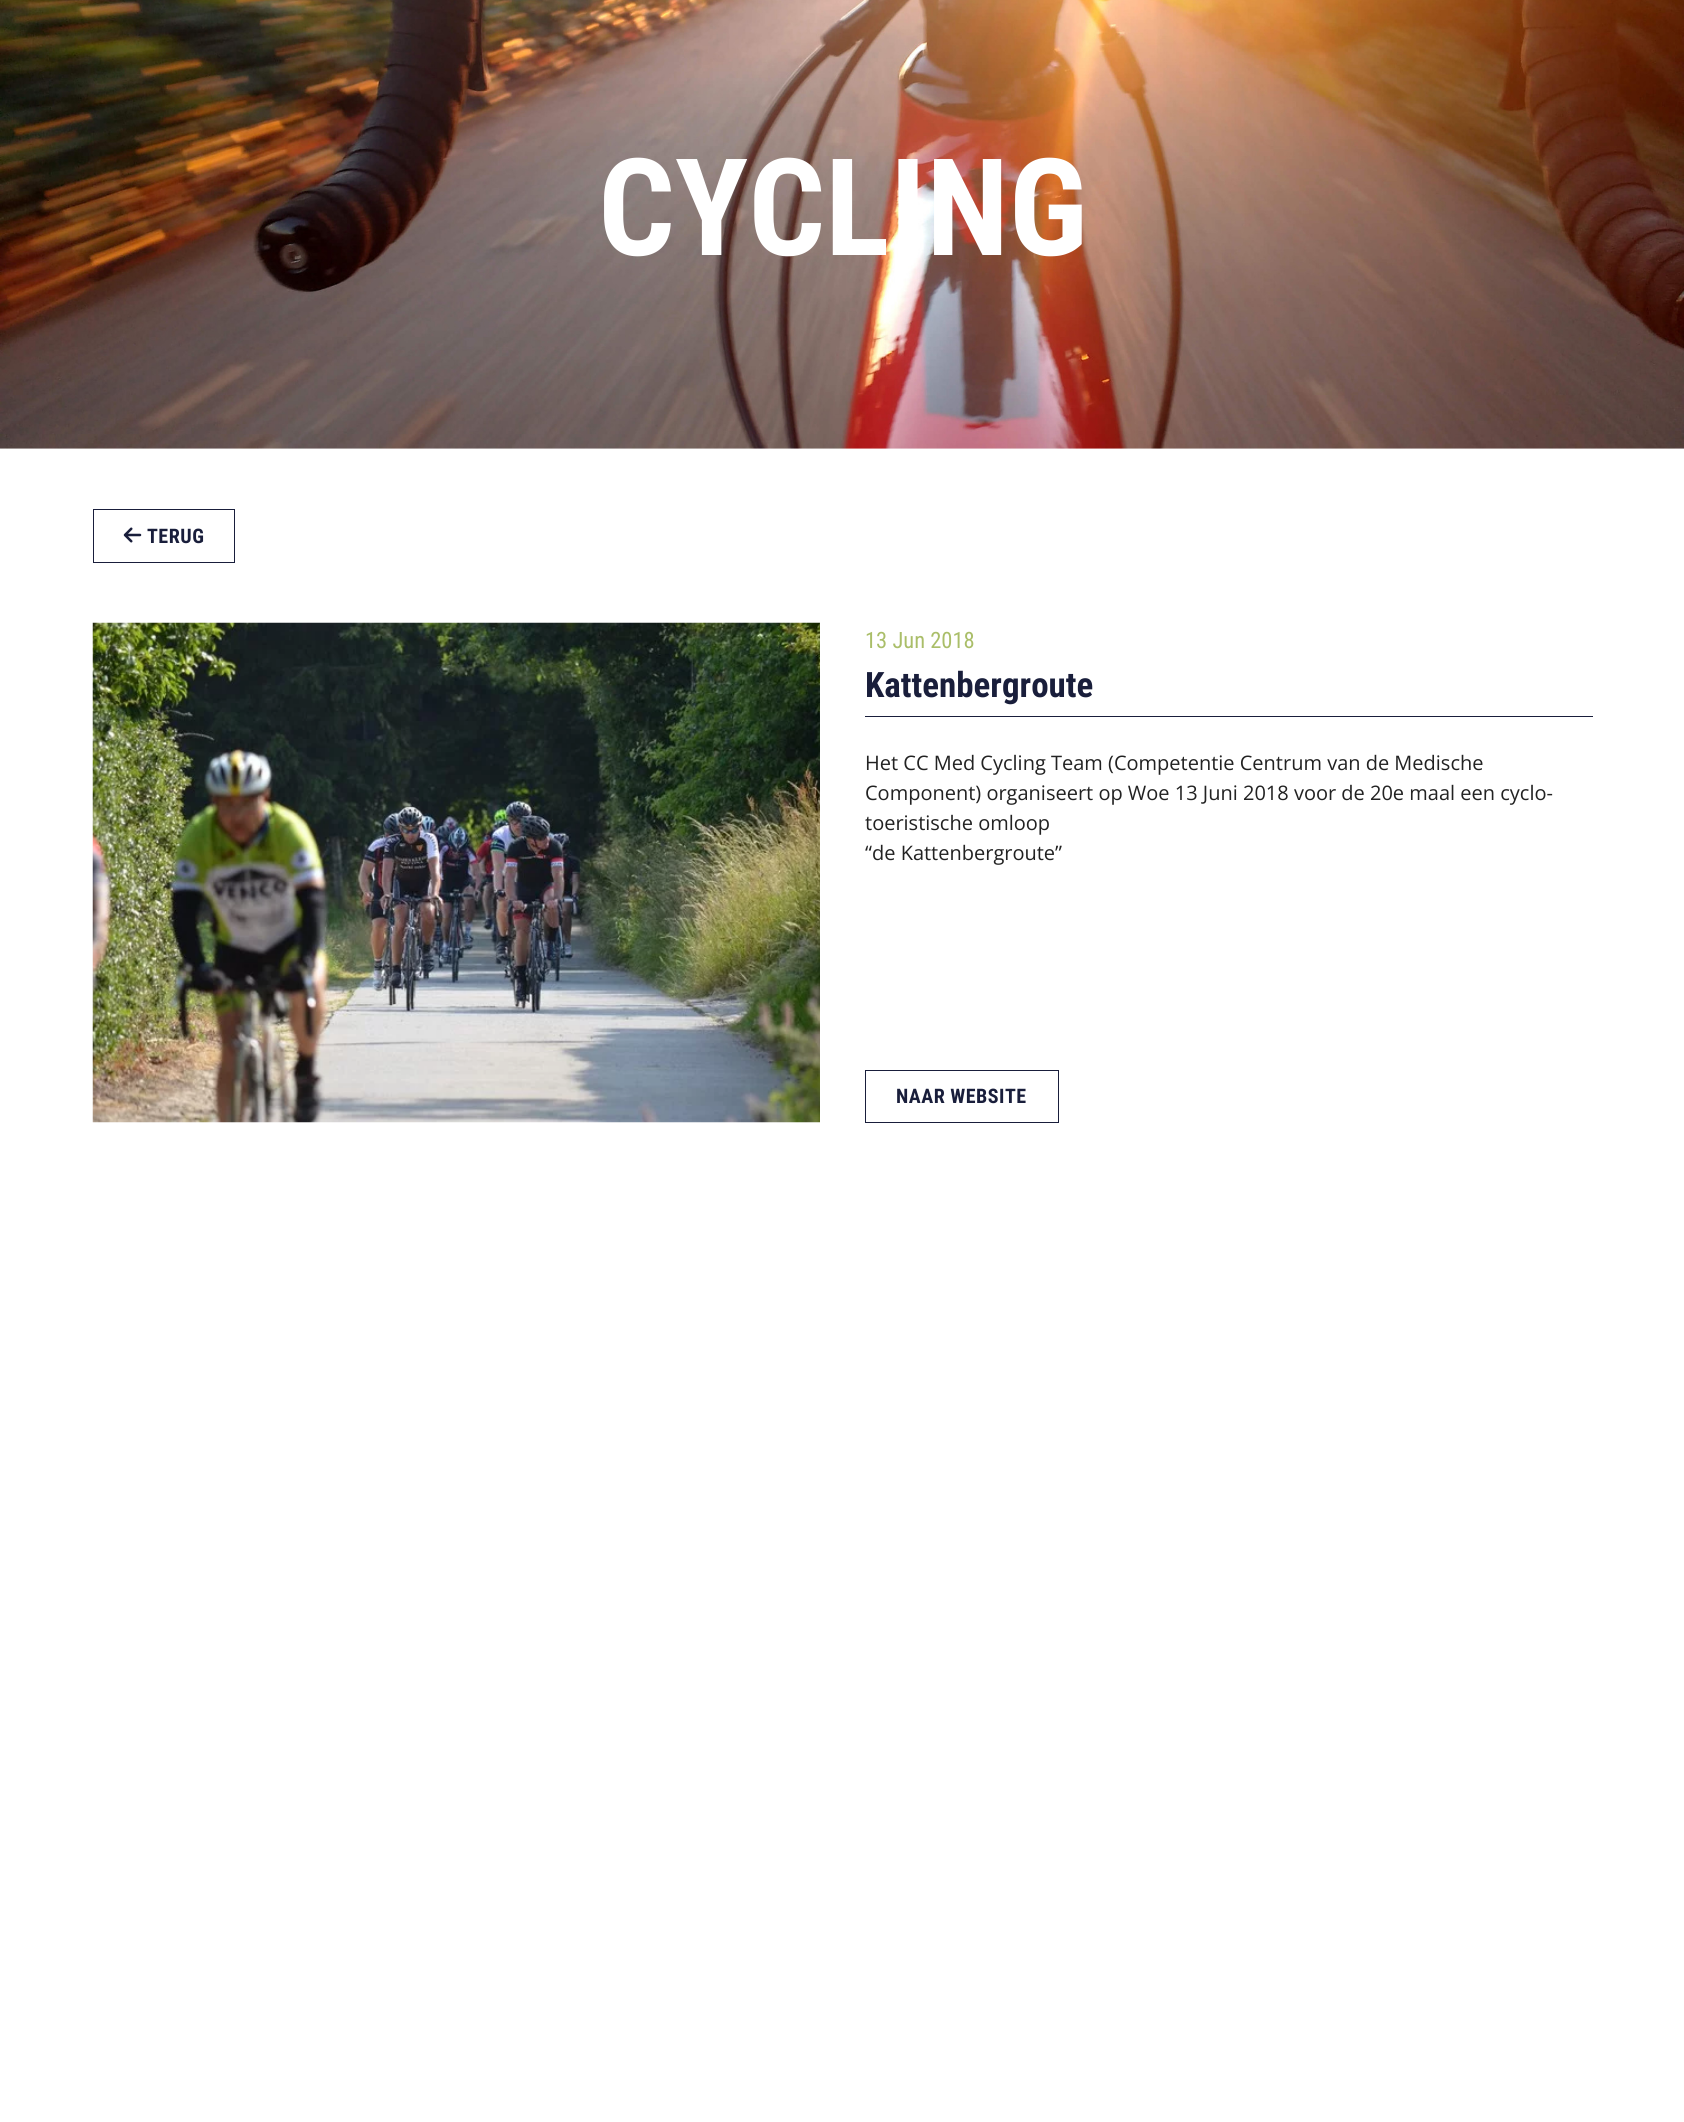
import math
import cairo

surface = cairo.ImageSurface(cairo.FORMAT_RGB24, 1684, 2122)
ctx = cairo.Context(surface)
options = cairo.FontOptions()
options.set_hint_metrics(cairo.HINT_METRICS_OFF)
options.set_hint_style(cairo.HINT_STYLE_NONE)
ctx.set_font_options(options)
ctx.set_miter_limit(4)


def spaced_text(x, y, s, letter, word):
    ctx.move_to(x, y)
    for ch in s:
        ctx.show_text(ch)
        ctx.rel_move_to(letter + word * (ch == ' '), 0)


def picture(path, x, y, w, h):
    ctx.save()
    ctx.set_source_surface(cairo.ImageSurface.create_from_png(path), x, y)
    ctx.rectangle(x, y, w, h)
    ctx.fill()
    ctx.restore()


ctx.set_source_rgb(1, 1, 1)
ctx.paint()
picture("img1.png", 0, 0, 1684, 449)
ctx.select_font_face("Roboto Condensed", cairo.FONT_SLANT_NORMAL, cairo.FONT_WEIGHT_BOLD)
ctx.set_font_size(135)
ctx.set_source_rgb(1, 1, 1)
ctx.move_to(598, 255)
ctx.show_text("CYCLING")
ctx.rectangle(93.5, 509.5, 141, 53)
ctx.set_source_rgb(0.098, 0.118, 0.231)
ctx.set_line_width(1)
ctx.stroke()
picture("img2.png", 123, 527, 19, 16)
ctx.set_font_size(20)
spaced_text(147, 543, "TERUG", 0.5, 0)
picture("img3.png", 92, 622, 728, 501)
ctx.rectangle(865, 716, 728, 1)
ctx.fill()
ctx.select_font_face("Roboto Condensed")
ctx.set_font_size(22.5)
ctx.set_source_rgb(0.667, 0.745, 0.412)
ctx.move_to(865, 648)
ctx.show_text("13 Jun 2018")
ctx.select_font_face("Roboto Condensed", cairo.FONT_SLANT_NORMAL, cairo.FONT_WEIGHT_BOLD)
ctx.set_font_size(35)
ctx.set_source_rgb(0.098, 0.118, 0.231)
ctx.move_to(865, 697)
ctx.show_text("Kattenbergroute")
ctx.select_font_face("Open Sans")
ctx.set_font_size(20)
ctx.set_source_rgb(0.133, 0.133, 0.133)
ctx.move_to(865, 770)
ctx.show_text("Het CC Med Cycling Team (Competentie Centrum van de Medische")
ctx.move_to(865, 800)
ctx.show_text("Component) organiseert op Woe 13 Juni 2018 voor de 20e maal een cyclo-")
ctx.move_to(865, 830)
ctx.show_text("toeristische omloop")
ctx.move_to(865, 860)
ctx.show_text("“de Kattenbergroute”")
ctx.rectangle(865.5, 1070.5, 193, 52)
ctx.set_source_rgb(0.098, 0.118, 0.231)
ctx.stroke()
ctx.select_font_face("Roboto Condensed", cairo.FONT_SLANT_NORMAL, cairo.FONT_WEIGHT_BOLD)
spaced_text(896, 1103, "NAAR WEBSITE", 0.5, 0)
surface.write_to_png("page.png")
